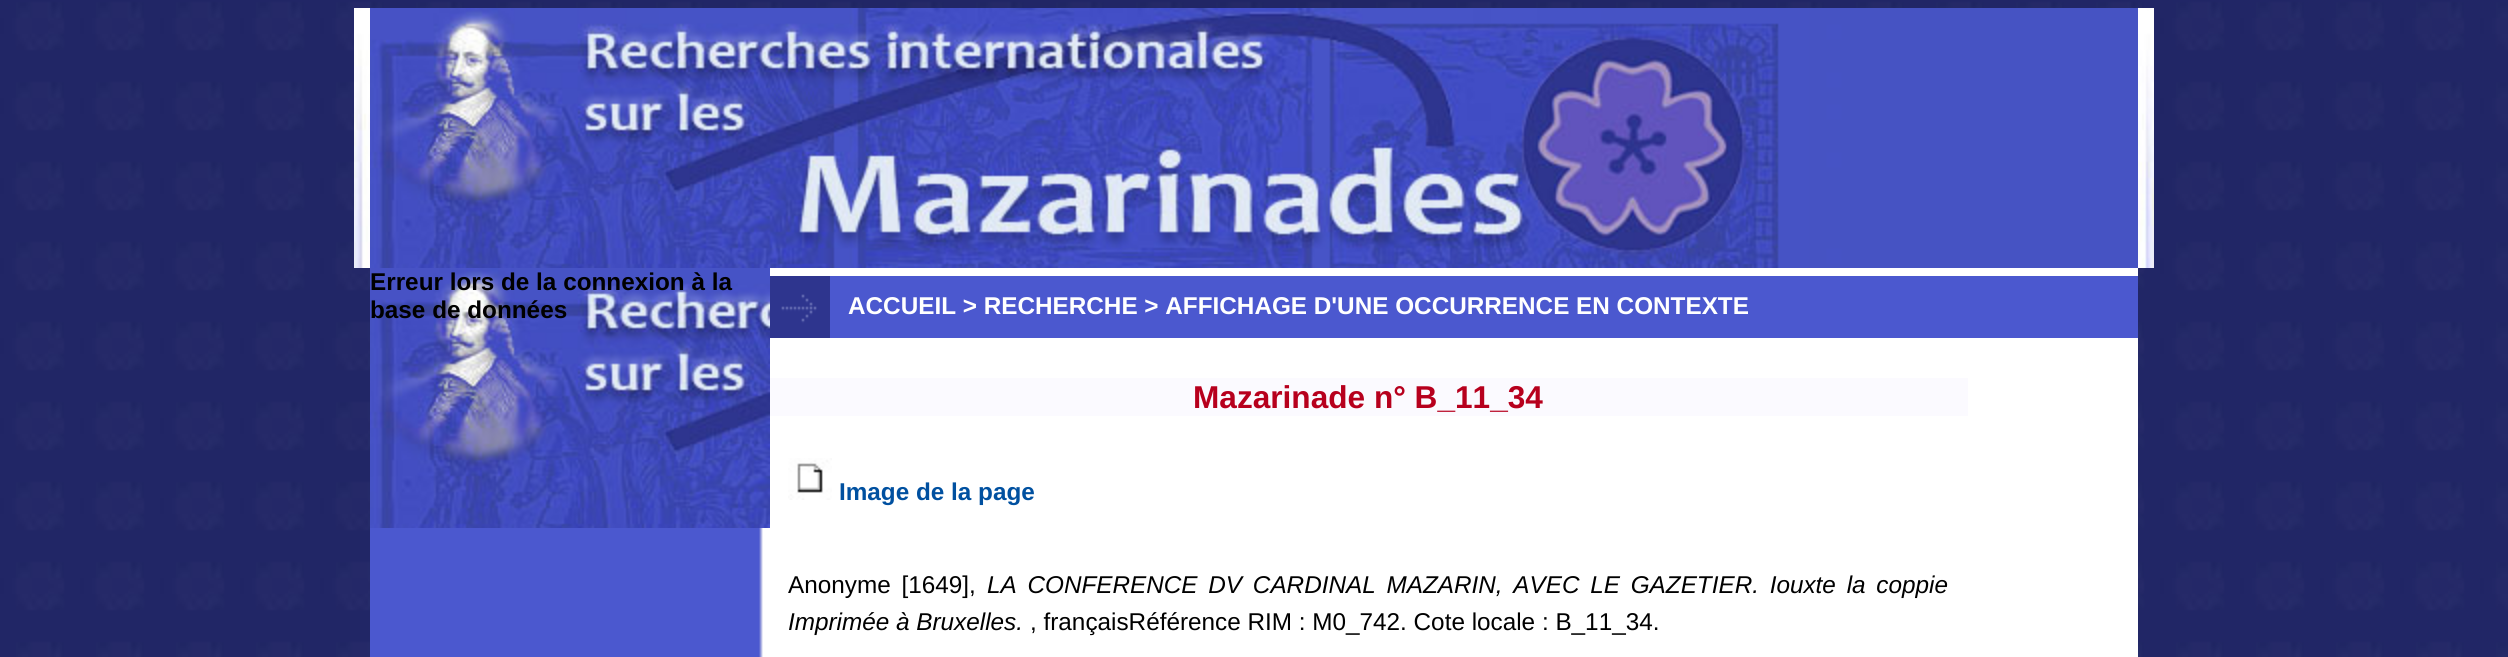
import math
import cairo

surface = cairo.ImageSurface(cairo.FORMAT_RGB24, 2508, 657)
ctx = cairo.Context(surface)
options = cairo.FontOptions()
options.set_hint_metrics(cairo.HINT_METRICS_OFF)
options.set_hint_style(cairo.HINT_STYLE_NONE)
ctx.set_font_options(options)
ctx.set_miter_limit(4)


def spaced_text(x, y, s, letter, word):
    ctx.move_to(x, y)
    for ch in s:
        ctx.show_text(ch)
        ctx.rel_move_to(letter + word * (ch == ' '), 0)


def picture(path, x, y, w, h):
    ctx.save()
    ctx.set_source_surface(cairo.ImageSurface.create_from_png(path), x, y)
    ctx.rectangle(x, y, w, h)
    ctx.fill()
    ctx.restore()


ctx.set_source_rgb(1, 1, 1)
ctx.paint()
picture("img1.png", 0, 0, 2508, 657)
picture("img2.png", 354, 8, 16, 260)
picture("img3.png", 2138, 8, 16, 260)
picture("img4.png", 370, 8, 1768, 260)
picture("img5.png", 370, 268, 1768, 389)
picture("img6.png", 370, 268, 400, 260)
ctx.select_font_face("Liberation Sans", cairo.FONT_SLANT_NORMAL, cairo.FONT_WEIGHT_BOLD)
ctx.set_font_size(24.3)
ctx.set_source_rgb(0, 0, 0)
ctx.move_to(370, 290)
ctx.show_text("Erreur lors de la connexion à la")
ctx.move_to(370, 318)
ctx.show_text("base de données")
ctx.set_source_rgb(0.294, 0.345, 0.812)
ctx.rectangle(830, 276, 1308, 62)
ctx.fill()
picture("img7.png", 770, 276, 60, 62)
ctx.set_source_rgb(1, 1, 1)
ctx.move_to(848, 314)
ctx.show_text("ACCUEIL > RECHERCHE > AFFICHAGE D'UNE OCCURRENCE EN CONTEXTE")
ctx.set_source_rgb(0.984, 0.98, 1)
ctx.rectangle(770, 378, 1198, 38)
ctx.fill()
ctx.set_font_size(31.6)
ctx.set_source_rgb(0.718, 0, 0.114)
ctx.move_to(1193, 408)
ctx.show_text("Mazarinade n° B_11_34")
picture("img8.png", 788, 458, 44, 42)
ctx.set_font_size(24.3)
ctx.set_source_rgb(0, 0.314, 0.627)
ctx.move_to(839, 500)
ctx.show_text("Image de la page")
ctx.select_font_face("Liberation Sans")
ctx.set_source_rgb(0, 0, 0)
spaced_text(788, 593, "Anonyme [1649],", 0, 4)
ctx.select_font_face("Liberation Sans", cairo.FONT_SLANT_ITALIC)
spaced_text(987, 593, "LA CONFERENCE DV CARDINAL MAZARIN, AVEC LE GAZETIER. Iouxte la coppie", 0, 4)
ctx.move_to(788, 630)
ctx.show_text("Imprimée à Bruxelles.")
ctx.select_font_face("Liberation Sans")
ctx.move_to(1030, 630)
ctx.show_text(", françaisRéférence RIM : M0_742. Cote locale : B_11_34.")
surface.write_to_png("page.png")
